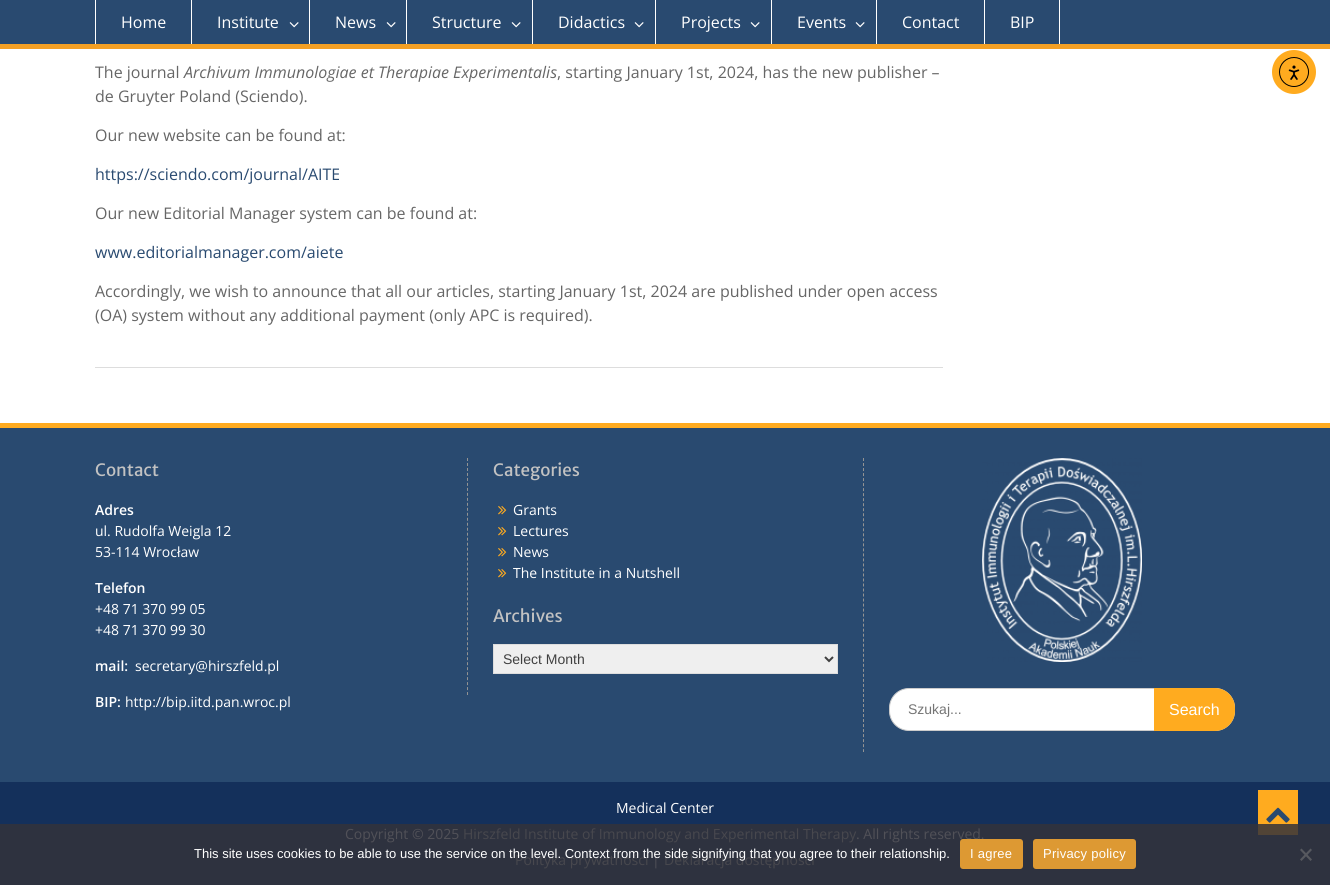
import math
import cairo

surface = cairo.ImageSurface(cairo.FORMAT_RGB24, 1330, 885)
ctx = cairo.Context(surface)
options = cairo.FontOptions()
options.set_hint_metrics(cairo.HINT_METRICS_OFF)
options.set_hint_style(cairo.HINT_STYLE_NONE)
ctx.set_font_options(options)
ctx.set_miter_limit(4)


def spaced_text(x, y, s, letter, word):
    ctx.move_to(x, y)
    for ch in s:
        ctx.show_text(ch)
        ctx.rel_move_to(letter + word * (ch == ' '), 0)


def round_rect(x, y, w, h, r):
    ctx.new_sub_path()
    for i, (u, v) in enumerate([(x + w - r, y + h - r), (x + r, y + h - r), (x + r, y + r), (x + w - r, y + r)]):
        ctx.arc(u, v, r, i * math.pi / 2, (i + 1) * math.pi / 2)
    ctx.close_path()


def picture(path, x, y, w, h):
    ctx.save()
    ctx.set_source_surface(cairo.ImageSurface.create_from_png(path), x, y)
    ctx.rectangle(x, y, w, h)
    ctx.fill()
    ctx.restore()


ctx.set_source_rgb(1, 1, 1)
ctx.paint()
ctx.set_source_rgb(0.161, 0.29, 0.439)
ctx.rectangle(0, 0, 1330, 44)
ctx.fill()
ctx.set_source_rgb(0.957, 0.627, 0.141)
ctx.rectangle(0, 44, 1330, 5)
ctx.fill()
ctx.set_source_rgb(1, 1, 1)
ctx.rectangle(191, 0, 1, 44)
ctx.fill()
ctx.rectangle(95, 0, 1, 44)
ctx.fill()
ctx.select_font_face("Open Sans")
ctx.set_font_size(16)
ctx.move_to(121, 28)
ctx.show_text("Home")
ctx.rectangle(309, 0, 1, 44)
ctx.fill()
ctx.move_to(217, 28)
ctx.show_text("Institute")
picture("img1.png", 289, 22, 10, 6)
ctx.rectangle(406, 0, 1, 44)
ctx.fill()
ctx.move_to(335, 28)
ctx.show_text("News")
picture("img1.png", 386, 22, 10, 6)
ctx.rectangle(532, 0, 1, 44)
ctx.fill()
ctx.move_to(432, 28)
ctx.show_text("Structure")
picture("img1.png", 511, 22, 10, 6)
ctx.rectangle(655, 0, 1, 44)
ctx.fill()
ctx.move_to(558, 28)
ctx.show_text("Didactics")
picture("img1.png", 634, 22, 10, 6)
ctx.rectangle(771, 0, 1, 44)
ctx.fill()
ctx.move_to(681, 28)
ctx.show_text("Projects")
picture("img1.png", 750, 22, 10, 6)
ctx.rectangle(876, 0, 1, 44)
ctx.fill()
ctx.move_to(797, 28)
ctx.show_text("Events")
picture("img1.png", 855, 22, 10, 6)
ctx.rectangle(984, 0, 1, 44)
ctx.fill()
ctx.move_to(902, 28)
ctx.show_text("Contact")
ctx.rectangle(1059, 0, 1, 44)
ctx.fill()
ctx.move_to(1010, 28)
ctx.show_text("BIP")
ctx.set_source_rgb(0.867, 0.867, 0.867)
ctx.rectangle(95, 367, 848, 1)
ctx.fill()
ctx.set_source_rgb(0.4, 0.4, 0.4)
ctx.move_to(95, 78)
ctx.show_text("The journal")
ctx.select_font_face("Open Sans", cairo.FONT_SLANT_ITALIC)
ctx.move_to(184, 78)
ctx.show_text("Archivum Immunologiae et Therapiae Experimentalis")
ctx.select_font_face("Open Sans")
ctx.move_to(557, 78)
ctx.show_text(", starting January 1st, 2024, has the new publisher –")
ctx.move_to(95, 102)
ctx.show_text("de Gruyter Poland (Sciendo).")
ctx.move_to(95, 141)
ctx.show_text("Our new website can be found at:")
ctx.set_source_rgb(0.161, 0.29, 0.439)
ctx.move_to(95, 180)
ctx.show_text("https://sciendo.com/journal/AITE")
ctx.set_source_rgb(0.4, 0.4, 0.4)
ctx.move_to(95, 219)
ctx.show_text("Our new Editorial Manager system can be found at:")
ctx.set_source_rgb(0.161, 0.29, 0.439)
ctx.move_to(95, 258)
ctx.show_text("www.editorialmanager.com/aiete")
ctx.set_source_rgb(0.4, 0.4, 0.4)
ctx.move_to(95, 297)
ctx.show_text("Accordingly, we wish to announce that all our articles, starting January 1st, 2024 are published under open access")
ctx.move_to(95, 321)
ctx.show_text("(OA) system without any additional payment (only APC is required).")
ctx.set_source_rgb(0.161, 0.29, 0.439)
ctx.rectangle(0, 428, 1330, 354)
ctx.fill()
ctx.set_source_rgb(1, 0.671, 0.122)
ctx.rectangle(0, 423, 1330, 5)
ctx.fill()
ctx.select_font_face("Merriweather Sans")
ctx.set_font_size(17)
ctx.set_source_rgb(0.761, 0.761, 0.761)
ctx.move_to(95, 476)
ctx.show_text("Contact")
ctx.select_font_face("Open Sans SemiBold")
ctx.set_font_size(14)
ctx.set_source_rgb(1, 1, 1)
ctx.move_to(95, 515)
ctx.show_text("Adres")
ctx.select_font_face("Open Sans")
ctx.move_to(95, 536)
ctx.show_text("ul. Rudolfa Weigla 12")
ctx.move_to(95, 557)
ctx.show_text("53-114 Wrocław")
ctx.select_font_face("Open Sans SemiBold")
ctx.move_to(95, 593)
ctx.show_text("Telefon")
ctx.select_font_face("Open Sans")
ctx.move_to(95, 614)
ctx.show_text("+48 71 370 99 05")
ctx.move_to(95, 635)
ctx.show_text("+48 71 370 99 30")
ctx.select_font_face("Open Sans SemiBold")
ctx.move_to(95, 671)
ctx.show_text("mail:")
ctx.select_font_face("Open Sans")
ctx.move_to(135, 671)
ctx.show_text("secretary@hirszfeld.pl")
ctx.select_font_face("Open Sans SemiBold")
ctx.move_to(95, 707)
ctx.show_text("BIP:")
ctx.select_font_face("Open Sans")
ctx.move_to(125, 707)
ctx.show_text("http://bip.iitd.pan.wroc.pl")
ctx.new_path()
ctx.move_to(467.5, 458)
ctx.line_to(467.5, 695)
ctx.set_source_rgb(0.576, 0.576, 0.576)
ctx.set_line_width(1)
ctx.set_dash([3, 1.98])
ctx.stroke()
ctx.select_font_face("Merriweather Sans")
ctx.set_font_size(17)
ctx.set_source_rgb(0.761, 0.761, 0.761)
ctx.move_to(493, 476)
ctx.show_text("Categories")
picture("img2.png", 498, 506, 9, 9)
ctx.select_font_face("Open Sans")
ctx.set_font_size(14)
ctx.set_source_rgb(1, 1, 1)
ctx.move_to(513, 515)
ctx.show_text("Grants")
picture("img2.png", 498, 527, 9, 9)
ctx.move_to(513, 536)
ctx.show_text("Lectures")
picture("img2.png", 498, 548, 9, 9)
ctx.move_to(513, 557)
ctx.show_text("News")
picture("img2.png", 498, 569, 9, 9)
ctx.move_to(513, 578)
ctx.show_text("The Institute in a Nutshell")
ctx.select_font_face("Merriweather Sans")
ctx.set_font_size(17)
ctx.set_source_rgb(0.761, 0.761, 0.761)
ctx.move_to(493, 622)
ctx.show_text("Archives")
ctx.set_source_rgb(0.937, 0.937, 0.937)
ctx.rectangle(493.5, 644.5, 344, 29)
ctx.fill_preserve()
ctx.set_source_rgb(0.867, 0.867, 0.867)
ctx.set_dash([])
ctx.stroke()
ctx.new_path()
ctx.move_to(825, 657)
ctx.line_to(829, 661)
ctx.line_to(833, 657)
ctx.set_source_rgb(0.251, 0.251, 0.251)
ctx.set_line_width(2)
ctx.stroke()
ctx.select_font_face("Liberation Sans")
ctx.set_font_size(14)
ctx.move_to(503, 664)
ctx.show_text("Select Month")
ctx.new_path()
ctx.move_to(863.5, 458)
ctx.line_to(863.5, 752)
ctx.set_source_rgb(0.576, 0.576, 0.576)
ctx.set_line_width(1)
ctx.set_dash([3, 2.02])
ctx.stroke()
picture("img3.png", 982, 458, 160, 204)
ctx.set_source_rgb(1, 1, 1)
round_rect(889.5, 688.5, 345, 42, 19.5)
ctx.fill_preserve()
ctx.set_source_rgb(0.8, 0.8, 0.8)
ctx.set_dash([])
ctx.stroke()
ctx.set_source_rgb(0.459, 0.459, 0.459)
ctx.move_to(908, 714)
ctx.show_text("Szukaj...")
ctx.set_source_rgb(1, 0.671, 0.122)
ctx.new_path()
ctx.move_to(1154, 688)
ctx.line_to(1215, 688)
ctx.curve_to(1226, 688, 1235, 697, 1235, 708)
ctx.line_to(1235, 711)
ctx.curve_to(1235, 722, 1226, 731, 1215, 731)
ctx.line_to(1154, 731)
ctx.close_path()
ctx.fill()
ctx.set_font_size(16)
ctx.set_source_rgb(1, 1, 1)
ctx.move_to(1169, 715)
ctx.show_text("Search")
ctx.set_source_rgb(0.082, 0.188, 0.357)
ctx.rectangle(0, 782, 1330, 42)
ctx.fill()
ctx.set_source_rgb(0.18, 0.196, 0.247)
ctx.rectangle(0, 824, 1330, 61)
ctx.fill()
ctx.select_font_face("Open Sans")
ctx.set_font_size(14)
ctx.set_source_rgb(1, 1, 1)
ctx.move_to(616, 813)
ctx.show_text("Medical Center")
ctx.set_source_rgb(0.318, 0.318, 0.345)
ctx.move_to(345, 839)
ctx.show_text("Copyright © 2025")
ctx.set_source_rgb(0.282, 0.282, 0.306)
ctx.move_to(463, 839)
ctx.show_text("Hirszfeld Institute of Immunology and Experimental Therapy")
ctx.set_source_rgb(0.318, 0.318, 0.345)
ctx.move_to(856, 839)
ctx.show_text(". All rights reserved.")
ctx.set_source_rgb(0.282, 0.282, 0.306)
ctx.move_to(515, 865)
ctx.show_text("Polityka prywatności")
ctx.set_source_rgb(0.318, 0.318, 0.345)
ctx.move_to(652, 865)
ctx.show_text("|")
ctx.set_source_rgb(0.282, 0.282, 0.306)
ctx.move_to(664, 865)
ctx.show_text("Deklaracja dostępności")
ctx.set_source_rgb(1, 0.671, 0.122)
ctx.new_path()
ctx.arc(1294, 72, 22, 0, 2 * math.pi)
ctx.fill()
ctx.arc(1294, 72, 14.5, 0, 2 * math.pi)
ctx.set_source_rgb(0, 0, 0)
ctx.stroke()
picture("img4.png", 1288, 65, 12, 15)
ctx.set_source_rgb(1, 0.671, 0.122)
ctx.rectangle(1258, 790, 40, 34)
ctx.fill()
ctx.set_source_rgb(0.318, 0.267, 0.212)
ctx.rectangle(1258, 824, 40, 11)
ctx.fill()
picture("img5.png", 1266, 807, 24, 16)
ctx.select_font_face("Liberation Sans")
ctx.set_font_size(13)
ctx.set_source_rgb(1, 1, 1)
ctx.move_to(194, 858)
ctx.show_text("This site uses cookies to be able to use the service on the level. Context from the side signifying that you agree to their relationship.")
ctx.set_source_rgb(0.867, 0.6, 0.2)
round_rect(960, 839, 63, 30, 3)
ctx.fill()
ctx.set_source_rgb(1, 1, 1)
spaced_text(970, 858, "I agree", 0.25, 0)
ctx.set_source_rgb(0.867, 0.6, 0.2)
round_rect(1033, 839, 103, 30, 3)
ctx.fill()
ctx.set_source_rgb(1, 1, 1)
spaced_text(1043, 858, "Privacy policy", 0.25, 0)
ctx.set_source_rgb(0.341, 0.349, 0.373)
ctx.new_path()
ctx.move_to(1310.5, 848.5)
ctx.line_to(1312, 850)
ctx.line_to(1301.5, 861)
ctx.line_to(1300, 859.5)
ctx.close_path()
ctx.fill()
ctx.new_path()
ctx.move_to(1300, 850)
ctx.line_to(1301.5, 848.5)
ctx.line_to(1312, 859.5)
ctx.line_to(1310.5, 861)
ctx.close_path()
ctx.fill()
surface.write_to_png("page.png")
